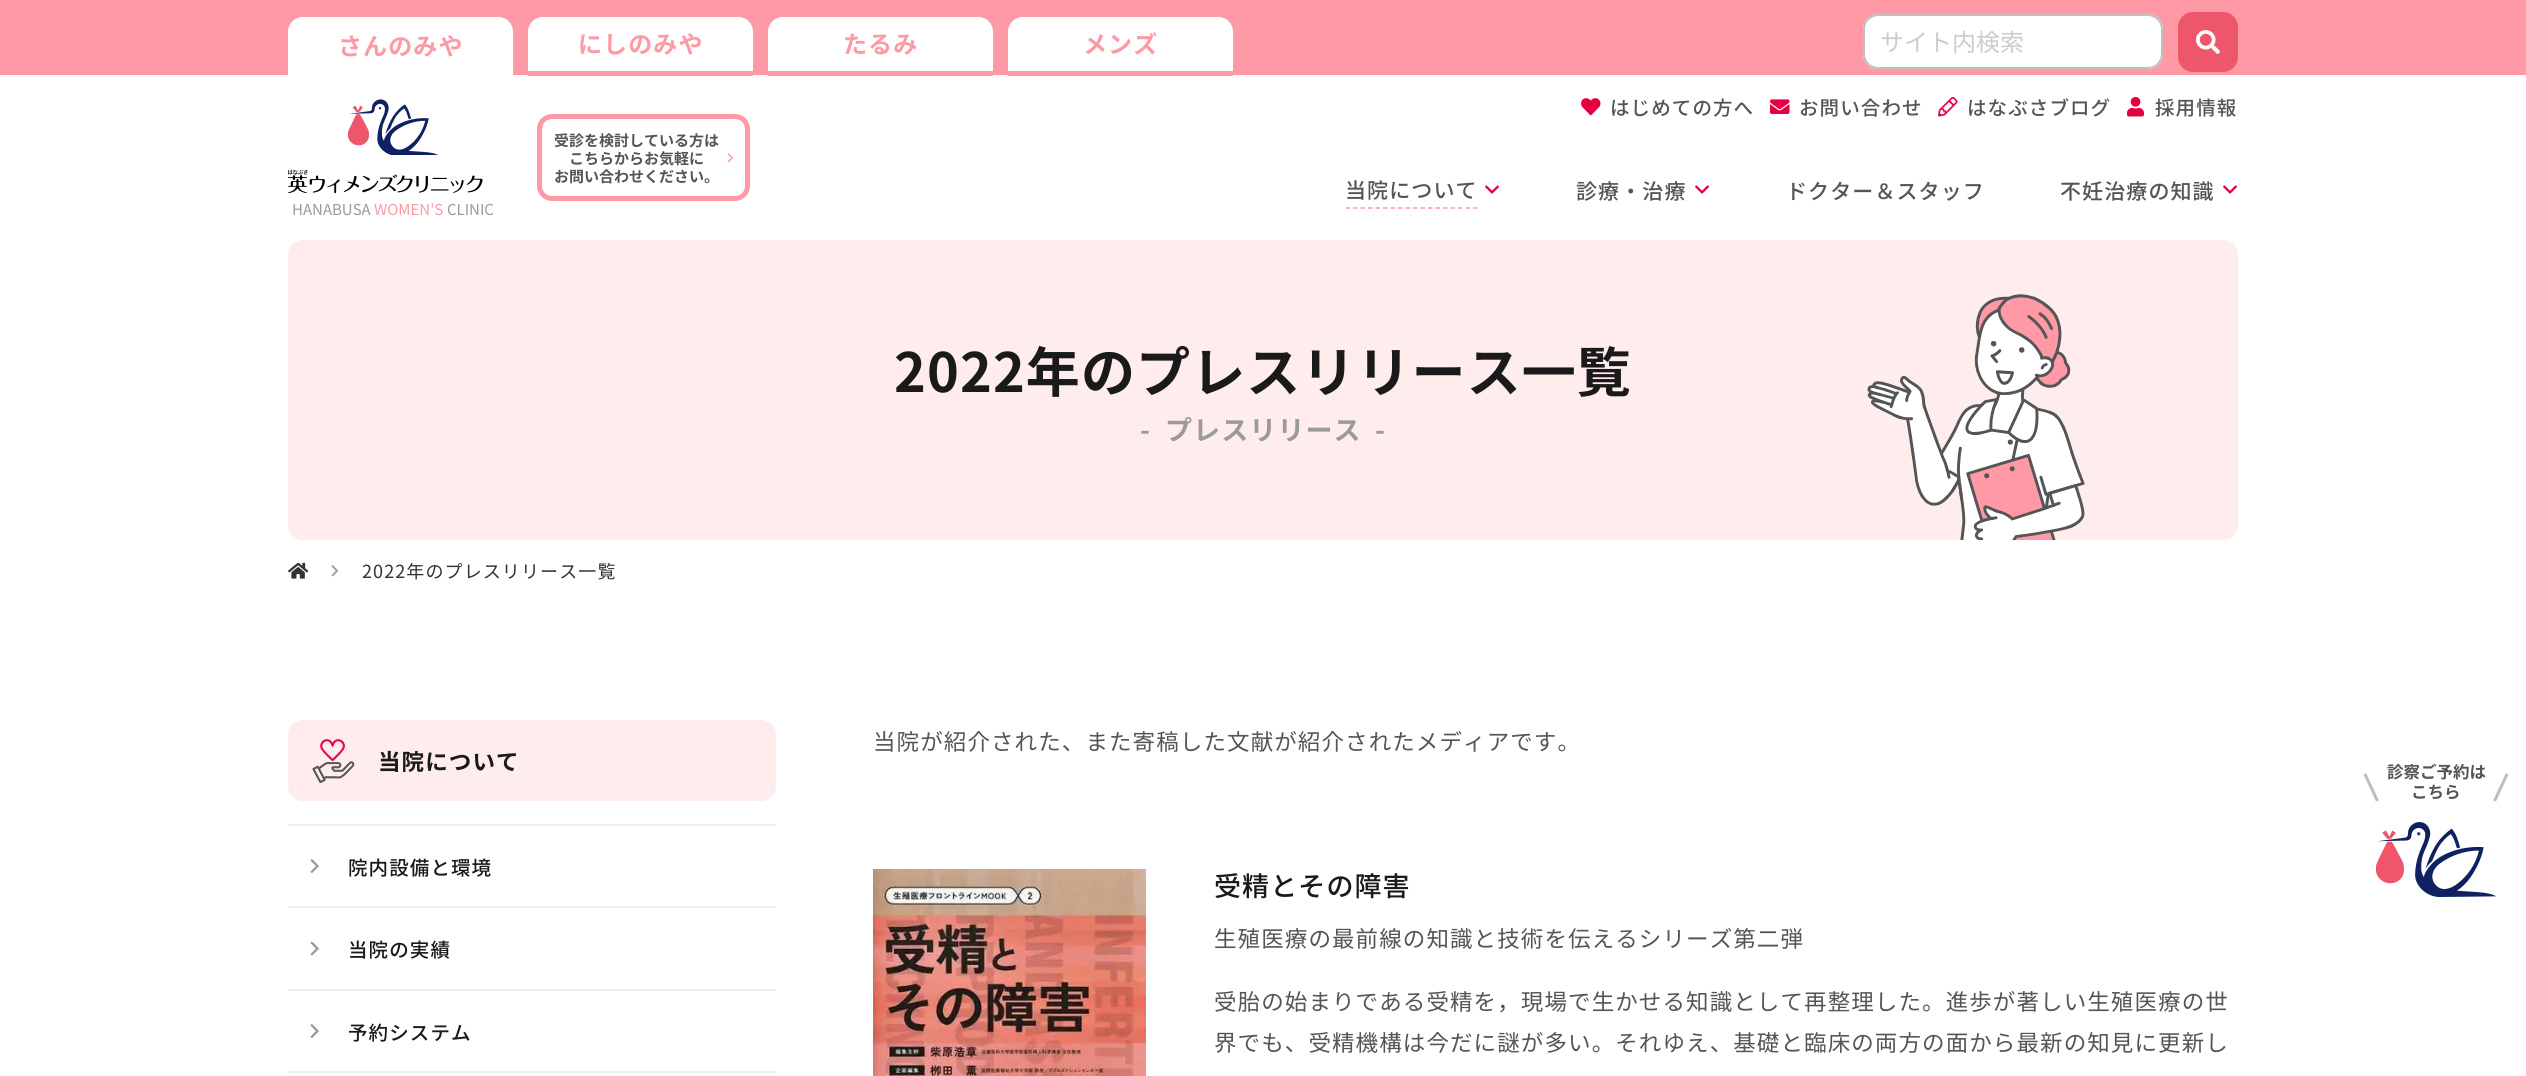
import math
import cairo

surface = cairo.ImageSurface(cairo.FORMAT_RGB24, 2526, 1076)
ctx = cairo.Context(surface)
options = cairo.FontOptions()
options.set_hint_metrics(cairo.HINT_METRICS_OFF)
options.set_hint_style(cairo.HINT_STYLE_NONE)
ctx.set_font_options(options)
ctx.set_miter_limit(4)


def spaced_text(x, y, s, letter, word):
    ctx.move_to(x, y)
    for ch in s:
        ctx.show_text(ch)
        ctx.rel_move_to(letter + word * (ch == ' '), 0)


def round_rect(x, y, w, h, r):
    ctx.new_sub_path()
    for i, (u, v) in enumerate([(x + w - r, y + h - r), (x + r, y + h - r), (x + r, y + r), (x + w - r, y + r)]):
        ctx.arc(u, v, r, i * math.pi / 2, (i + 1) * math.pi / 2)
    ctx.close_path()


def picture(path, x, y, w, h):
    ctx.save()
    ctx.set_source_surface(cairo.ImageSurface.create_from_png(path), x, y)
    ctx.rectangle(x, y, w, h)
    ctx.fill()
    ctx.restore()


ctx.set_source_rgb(1, 1, 1)
ctx.paint()
ctx.set_source_rgb(1, 0.6, 0.647)
ctx.rectangle(0, 0, 2526, 75)
ctx.fill()
ctx.set_source_rgb(1, 1, 1)
ctx.new_path()
ctx.move_to(303, 17)
ctx.line_to(498, 17)
ctx.curve_to(506.5, 17, 513, 23.5, 513, 32)
ctx.line_to(513, 75)
ctx.line_to(288, 75)
ctx.line_to(288, 32)
ctx.curve_to(288, 23.5, 294.5, 17, 303, 17)
ctx.close_path()
ctx.fill()
ctx.select_font_face("Noto Sans JP", cairo.FONT_SLANT_NORMAL, cairo.FONT_WEIGHT_BOLD)
ctx.set_font_size(24)
ctx.set_source_rgb(1, 0.6, 0.647)
spaced_text(338, 55, "さんのみや", 1.1, 0)
ctx.set_source_rgb(1, 1, 1)
ctx.new_path()
ctx.move_to(543, 17)
ctx.line_to(738, 17)
ctx.curve_to(746.5, 17, 753, 23.5, 753, 32)
ctx.line_to(753, 75)
ctx.line_to(528, 75)
ctx.line_to(528, 32)
ctx.curve_to(528, 23.5, 534.5, 17, 543, 17)
ctx.close_path()
ctx.fill()
ctx.set_source_rgb(1, 0.6, 0.647)
ctx.rectangle(528, 71, 225, 5)
ctx.fill()
spaced_text(578, 53, "にしのみや", 1.1, 0)
ctx.set_source_rgb(1, 1, 1)
ctx.new_path()
ctx.move_to(783, 17)
ctx.line_to(978, 17)
ctx.curve_to(986.5, 17, 993, 23.5, 993, 32)
ctx.line_to(993, 75)
ctx.line_to(768, 75)
ctx.line_to(768, 32)
ctx.curve_to(768, 23.5, 774.5, 17, 783, 17)
ctx.close_path()
ctx.fill()
ctx.set_source_rgb(1, 0.6, 0.647)
ctx.rectangle(768, 71, 225, 5)
ctx.fill()
spaced_text(843, 53, "たるみ", 1.1, 0)
ctx.set_source_rgb(1, 1, 1)
ctx.new_path()
ctx.move_to(1023, 17)
ctx.line_to(1218, 17)
ctx.curve_to(1226.5, 17, 1233, 23.5, 1233, 32)
ctx.line_to(1233, 75)
ctx.line_to(1008, 75)
ctx.line_to(1008, 32)
ctx.curve_to(1008, 23.5, 1014.5, 17, 1023, 17)
ctx.close_path()
ctx.fill()
ctx.set_source_rgb(1, 0.6, 0.647)
ctx.rectangle(1008, 71, 225, 5)
ctx.fill()
spaced_text(1083, 53, "メンズ", 1.1, 0)
ctx.set_source_rgb(1, 1, 1)
round_rect(1863, 14, 300, 55, 15)
ctx.fill()
ctx.set_source_rgb(0.902, 0.902, 0.902)
ctx.new_path()
ctx.move_to(1878, 16)
ctx.line_to(2148, 16)
ctx.curve_to(2155, 16, 2162, 23, 2162, 30)
ctx.line_to(2162, 29)
ctx.curve_to(2162, 21, 2156, 15, 2148, 15)
ctx.line_to(1879, 15)
ctx.curve_to(1874, 15, 1869, 18, 1867, 22)
ctx.curve_to(1869, 19, 1874, 16, 1878, 16)
ctx.close_path()
ctx.fill()
round_rect(1864, 15, 298, 53, 14)
ctx.set_source_rgb(0.749, 0.749, 0.749)
ctx.stroke()
ctx.select_font_face("Noto Sans JP")
ctx.set_source_rgb(0.8, 0.8, 0.8)
ctx.move_to(1880, 51)
ctx.show_text("サイト内検索")
ctx.set_source_rgb(0.933, 0.341, 0.42)
round_rect(2180.5, 14.5, 55, 55, 12.5)
ctx.fill_preserve()
ctx.set_line_width(5)
ctx.stroke()
picture("img1.png", 2196, 30, 24, 24)
picture("img2.png", 1581, 98, 20, 18)
ctx.select_font_face("Noto Sans JP Medium")
ctx.set_font_size(19.5)
ctx.set_source_rgb(0.333, 0.333, 0.333)
spaced_text(1610, 115, "はじめての方へ", 1.1, 0)
picture("img3.png", 1770, 99, 20, 15)
spaced_text(1799, 115, "お問い合わせ", 1.1, 0)
picture("img4.png", 1938, 97, 20, 20)
spaced_text(1967, 115, "はなぶさブログ", 1.1, 0)
picture("img5.png", 2127, 96, 18, 21)
spaced_text(2155, 115, "採用情報", 1.1, 0)
round_rect(539.5, 116.5, 208, 82, 12.5)
ctx.set_source_rgb(1, 0.6, 0.647)
ctx.stroke()
ctx.select_font_face("Noto Sans JP", cairo.FONT_SLANT_NORMAL, cairo.FONT_WEIGHT_BOLD)
ctx.set_font_size(15)
ctx.set_source_rgb(0.333, 0.333, 0.333)
ctx.move_to(554, 146)
ctx.show_text("受診を検討している方は")
ctx.move_to(569, 164)
ctx.show_text("こちらからお気軽に")
picture("img6.png", 727, 153, 6, 10)
ctx.move_to(554, 182)
ctx.show_text("お問い合わせください。")
ctx.new_path()
ctx.move_to(1345.5, 208)
ctx.line_to(1477.5, 208)
ctx.set_source_rgb(1, 0.6, 0.647)
ctx.set_line_width(1.5)
ctx.set_dash([4.5, 3])
ctx.stroke()
ctx.select_font_face("Noto Sans JP Medium")
ctx.set_font_size(21)
ctx.set_source_rgb(0.333, 0.333, 0.333)
spaced_text(1345, 198, "当院について", 1.1, 0)
picture("img7.png", 1485, 185, 14, 9)
spaced_text(1576, 199, "診療・治療", 1.1, 0)
picture("img7.png", 1695, 185, 14, 9)
spaced_text(1786, 199, "ドクター＆スタッフ", 1.1, 0)
spaced_text(2060, 199, "不妊治療の知識", 1.1, 0)
picture("img7.png", 2223, 185, 14, 9)
picture("img8.png", 348, 99, 90, 56)
picture("img9.png", 288, 170, 195, 23)
ctx.select_font_face("Noto Sans JP")
ctx.set_font_size(15)
ctx.set_source_rgb(0.604, 0.604, 0.604)
ctx.move_to(292, 215)
ctx.show_text("HANABUSA")
ctx.set_source_rgb(1, 0.6, 0.647)
ctx.move_to(374, 215)
ctx.show_text("WOMEN'S")
ctx.set_source_rgb(0.604, 0.604, 0.604)
ctx.move_to(447, 215)
ctx.show_text("CLINIC")
ctx.set_source_rgb(1, 0.922, 0.929)
round_rect(288, 240, 1950, 300, 15)
ctx.fill()
ctx.select_font_face("Noto Sans JP", cairo.FONT_SLANT_NORMAL, cairo.FONT_WEIGHT_BOLD)
ctx.set_font_size(54)
ctx.set_source_rgb(0.102, 0.102, 0.102)
spaced_text(894, 392, "2022年のプレスリリース一覧", 1.1, 0)
picture("img10.png", 1867, 294, 218, 246)
ctx.set_font_size(27)
ctx.set_source_rgb(0.604, 0.604, 0.604)
spaced_text(1140, 440, "-", 1.1, 0)
spaced_text(1165, 440, "プレスリリース", 1.1, 0)
spaced_text(1375, 440, "-", 1.1, 0)
picture("img11.png", 288, 562, 21, 17)
picture("img12.png", 331, 565, 8, 12)
ctx.select_font_face("Noto Sans JP")
ctx.set_font_size(18)
ctx.set_source_rgb(0.2, 0.2, 0.2)
spaced_text(362, 578, "2022年のプレスリリース一覧", 1.1, 0)
ctx.set_source_rgb(1, 0.922, 0.929)
round_rect(288, 720, 488, 81, 15)
ctx.fill()
picture("img13.png", 312, 739, 43, 44)
ctx.select_font_face("Noto Sans JP", cairo.FONT_SLANT_NORMAL, cairo.FONT_WEIGHT_BOLD)
ctx.set_font_size(22.5)
ctx.set_source_rgb(0.102, 0.102, 0.102)
spaced_text(378, 770, "当院について", 1.1, 0)
ctx.set_source_rgb(0.933, 0.933, 0.933)
ctx.rectangle(288, 824, 488, 2)
ctx.fill()
ctx.rectangle(288, 906, 488, 2)
ctx.fill()
picture("img14.png", 310, 859, 9, 14)
ctx.select_font_face("Noto Sans JP Medium")
ctx.set_font_size(19.5)
ctx.set_source_rgb(0.102, 0.102, 0.102)
spaced_text(348, 875, "院内設備と環境", 1.1, 0)
ctx.set_source_rgb(0.933, 0.933, 0.933)
ctx.rectangle(288, 989, 488, 2)
ctx.fill()
picture("img15.png", 310, 941, 9, 15)
ctx.set_source_rgb(0.102, 0.102, 0.102)
spaced_text(348, 957, "当院の実績", 1.1, 0)
ctx.set_source_rgb(0.933, 0.933, 0.933)
ctx.rectangle(288, 1071, 488, 2)
ctx.fill()
picture("img14.png", 310, 1024, 9, 14)
ctx.set_source_rgb(0.102, 0.102, 0.102)
spaced_text(348, 1040, "予約システム", 1.1, 0)
ctx.select_font_face("Noto Sans JP")
ctx.set_font_size(22.5)
ctx.set_source_rgb(0.333, 0.333, 0.333)
spaced_text(873, 750, "当院が紹介された、また寄稿した文献が紹介されたメディアです。", 1.1, 0)
picture("img16.png", 873, 869, 273, 207)
ctx.select_font_face("Noto Sans JP Medium")
ctx.set_font_size(27)
ctx.set_source_rgb(0.102, 0.102, 0.102)
spaced_text(1214, 896, "受精とその障害", 1.1, 0)
ctx.select_font_face("Noto Sans JP")
ctx.set_font_size(22.5)
ctx.set_source_rgb(0.333, 0.333, 0.333)
spaced_text(1214, 947, "生殖医療の最前線の知識と技術を伝えるシリーズ第二弾", 1.1, 0)
spaced_text(1214, 1010, "受胎の始まりである受精を，現場で生かせる知識として再整理した。進歩が著しい生殖医療の世", 1.1, 0)
spaced_text(1214, 1051, "界でも、受精機構は今だに謎が多い。それゆえ、基礎と臨床の両方の面から最新の知見に更新し", 1.1, 0)
ctx.set_source_rgb(0.749, 0.749, 0.749)
ctx.new_path()
ctx.move_to(2363.5, 774.5)
ctx.line_to(2366, 773)
ctx.line_to(2379, 800.5)
ctx.line_to(2376, 801.5)
ctx.close_path()
ctx.fill()
ctx.select_font_face("Noto Sans JP", cairo.FONT_SLANT_NORMAL, cairo.FONT_WEIGHT_BOLD)
ctx.set_font_size(16.5)
ctx.set_source_rgb(0.333, 0.333, 0.333)
ctx.move_to(2387, 778)
ctx.show_text("診察ご予約は")
ctx.set_source_rgb(0.749, 0.749, 0.749)
ctx.new_path()
ctx.move_to(2506, 773)
ctx.line_to(2508.5, 774.5)
ctx.line_to(2496, 801.5)
ctx.line_to(2493, 800.5)
ctx.close_path()
ctx.fill()
ctx.set_source_rgb(0.333, 0.333, 0.333)
ctx.move_to(2411, 798)
ctx.show_text("こちら")
picture("img17.png", 2376, 822, 120, 75)
surface.write_to_png("page.png")
